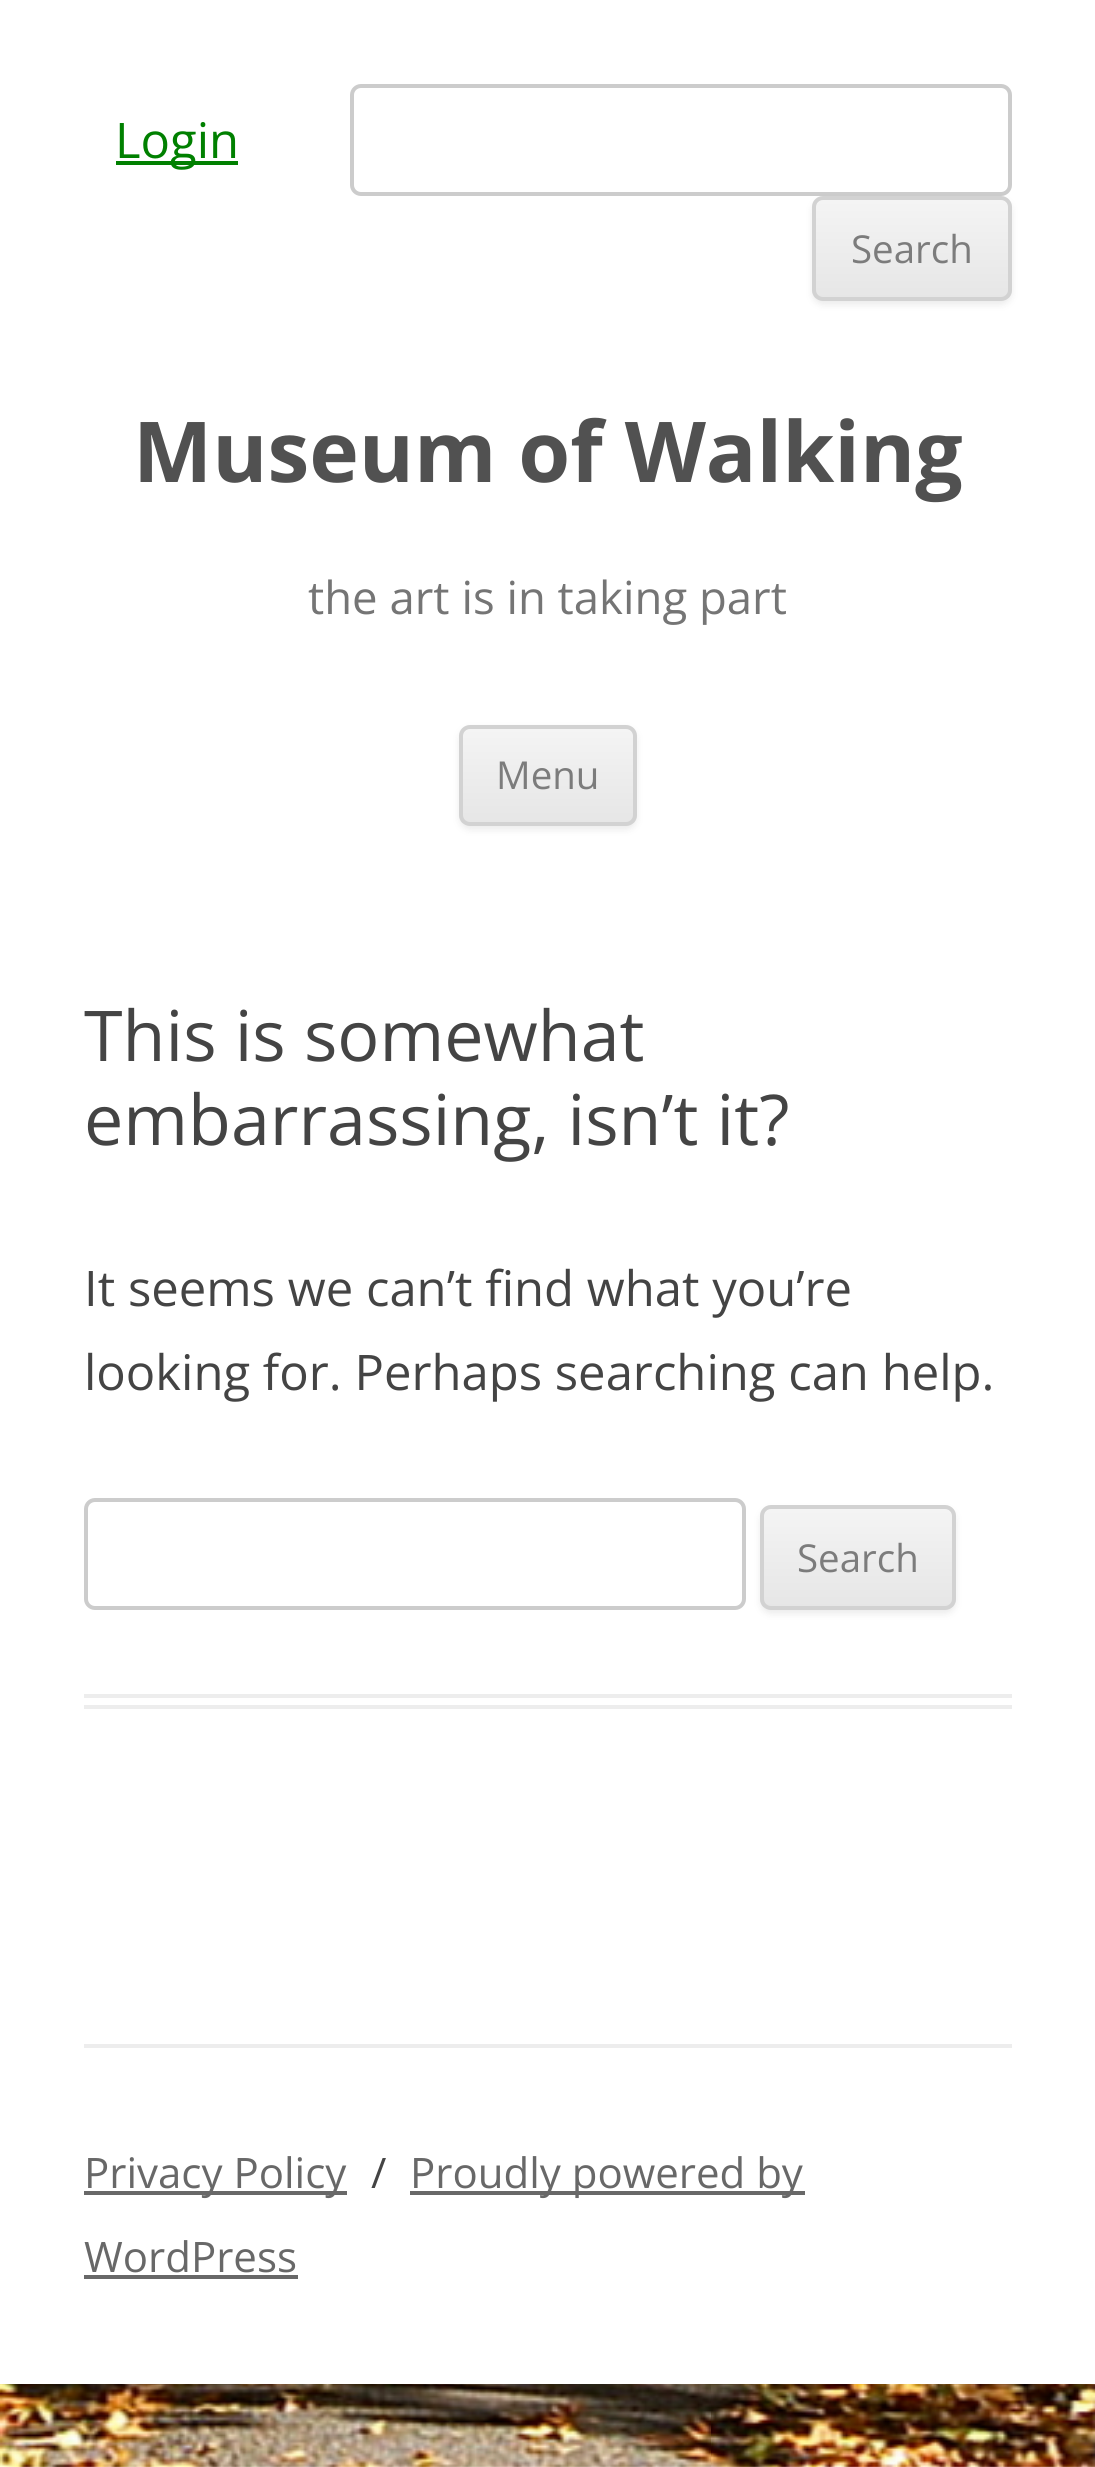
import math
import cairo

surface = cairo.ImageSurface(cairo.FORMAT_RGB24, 1095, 2467)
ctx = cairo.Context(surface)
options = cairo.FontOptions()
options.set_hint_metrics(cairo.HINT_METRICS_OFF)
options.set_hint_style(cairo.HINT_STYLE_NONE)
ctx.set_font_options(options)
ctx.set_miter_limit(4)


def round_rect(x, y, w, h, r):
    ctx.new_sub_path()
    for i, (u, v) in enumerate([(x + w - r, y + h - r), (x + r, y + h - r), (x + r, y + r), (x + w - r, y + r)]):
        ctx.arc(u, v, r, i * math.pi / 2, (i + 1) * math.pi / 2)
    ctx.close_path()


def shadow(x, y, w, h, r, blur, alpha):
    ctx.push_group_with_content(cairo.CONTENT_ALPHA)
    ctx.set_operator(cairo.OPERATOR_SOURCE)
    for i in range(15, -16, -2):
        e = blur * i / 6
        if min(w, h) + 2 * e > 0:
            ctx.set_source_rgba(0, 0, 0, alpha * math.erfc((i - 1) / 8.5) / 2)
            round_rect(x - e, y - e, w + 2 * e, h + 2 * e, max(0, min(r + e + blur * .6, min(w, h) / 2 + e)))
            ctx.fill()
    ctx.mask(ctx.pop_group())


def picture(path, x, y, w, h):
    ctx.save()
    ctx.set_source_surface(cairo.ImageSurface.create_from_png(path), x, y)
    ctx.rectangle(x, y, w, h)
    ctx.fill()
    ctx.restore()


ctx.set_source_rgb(1, 1, 1)
ctx.paint()
picture("img1.png", 0, 2384, 1095, 83)
ctx.set_source_rgb(0, 0.502, 0)
ctx.rectangle(116, 161, 122, 4)
ctx.fill()
ctx.select_font_face("Open Sans")
ctx.set_font_size(49)
ctx.move_to(115, 158)
ctx.show_text("Login")
round_rect(352, 86, 658, 108, 9)
ctx.set_source_rgb(0.8, 0.8, 0.8)
ctx.set_line_width(4)
ctx.stroke()
ctx.set_source_rgb(0.251, 0.251, 0.251)
shadow(812, 200, 200, 105, 11, 3.5, 0.1)
ctx.save()
round_rect(812, 196, 200, 105, 11)
ctx.clip()
gradient = cairo.LinearGradient(912, 200, 912, 298)
gradient.add_color_stop_rgba(0, 0.957, 0.957, 0.957, 1)
gradient.add_color_stop_rgba(1, 0.902, 0.902, 0.902, 1)
ctx.set_source(gradient)
ctx.rectangle(812, 200, 200, 98)
ctx.fill()
ctx.restore()
round_rect(814, 198, 196, 101, 9)
ctx.set_source_rgb(0.824, 0.824, 0.824)
ctx.stroke()
ctx.set_font_size(38.5)
ctx.set_source_rgb(0.486, 0.486, 0.486)
ctx.move_to(851, 263)
ctx.show_text("Search")
ctx.select_font_face("Open Sans", cairo.FONT_SLANT_NORMAL, cairo.FONT_WEIGHT_BOLD)
ctx.set_font_size(84)
ctx.set_source_rgb(0.318, 0.318, 0.318)
ctx.move_to(133, 482)
ctx.show_text("Museum of Walking")
ctx.select_font_face("Open Sans")
ctx.set_font_size(45.5)
ctx.set_source_rgb(0.459, 0.459, 0.459)
ctx.move_to(308, 614)
ctx.show_text("the art is in taking part")
ctx.set_source_rgb(0.251, 0.251, 0.251)
shadow(459, 728, 178, 102, 11, 3.5, 0.1)
ctx.save()
round_rect(459, 725, 178, 101, 11)
ctx.clip()
gradient = cairo.LinearGradient(548, 728, 548, 823)
gradient.add_color_stop_rgba(0, 0.957, 0.957, 0.957, 1)
gradient.add_color_stop_rgba(1, 0.902, 0.902, 0.902, 1)
ctx.set_source(gradient)
ctx.rectangle(459, 728, 178, 95)
ctx.fill()
ctx.restore()
round_rect(461, 727, 174, 97, 9)
ctx.set_source_rgb(0.824, 0.824, 0.824)
ctx.stroke()
ctx.set_font_size(38.5)
ctx.set_source_rgb(0.486, 0.486, 0.486)
ctx.move_to(496, 789)
ctx.show_text("Menu")
ctx.set_source_rgb(0.929, 0.929, 0.929)
ctx.rectangle(84, 1694, 928, 4)
ctx.fill()
ctx.rectangle(84, 1705, 928, 4)
ctx.fill()
ctx.set_font_size(70)
ctx.set_source_rgb(0.267, 0.267, 0.267)
ctx.move_to(84, 1061)
ctx.show_text("This is somewhat")
ctx.move_to(84, 1145)
ctx.show_text("embarrassing, isn’t it?")
ctx.set_font_size(49)
ctx.move_to(84, 1306)
ctx.show_text("It seems we can’t find what you’re")
ctx.move_to(84, 1390)
ctx.show_text("looking for. Perhaps searching can help.")
round_rect(86, 1500, 658, 108, 9)
ctx.set_source_rgb(0.8, 0.8, 0.8)
ctx.stroke()
ctx.set_source_rgb(0.251, 0.251, 0.251)
shadow(760, 1509, 196, 105, 11, 3.5, 0.1)
ctx.save()
round_rect(760, 1505, 196, 105, 11)
ctx.clip()
gradient = cairo.LinearGradient(858, 1509, 858, 1607)
gradient.add_color_stop_rgba(0, 0.957, 0.957, 0.957, 1)
gradient.add_color_stop_rgba(1, 0.902, 0.902, 0.902, 1)
ctx.set_source(gradient)
ctx.rectangle(760, 1509, 196, 98)
ctx.fill()
ctx.restore()
round_rect(762, 1507, 192, 101, 9)
ctx.set_source_rgb(0.824, 0.824, 0.824)
ctx.stroke()
ctx.set_font_size(38.5)
ctx.set_source_rgb(0.486, 0.486, 0.486)
ctx.move_to(797, 1572)
ctx.show_text("Search")
ctx.set_source_rgb(0.929, 0.929, 0.929)
ctx.rectangle(84, 2044, 928, 4)
ctx.fill()
ctx.set_source_rgb(0.408, 0.408, 0.408)
ctx.rectangle(84, 2191, 263, 4)
ctx.fill()
ctx.set_font_size(42)
ctx.move_to(84, 2188)
ctx.show_text("Privacy Policy")
ctx.set_source_rgb(0.267, 0.267, 0.267)
ctx.move_to(371, 2188)
ctx.show_text("/")
ctx.set_source_rgb(0.408, 0.408, 0.408)
ctx.rectangle(410, 2191, 395, 4)
ctx.fill()
ctx.move_to(410, 2188)
ctx.show_text("Proudly powered by")
ctx.move_to(84, 2272)
ctx.show_text("WordPress")
ctx.rectangle(84, 2275, 214, 4)
ctx.fill()
surface.write_to_png("page.png")
